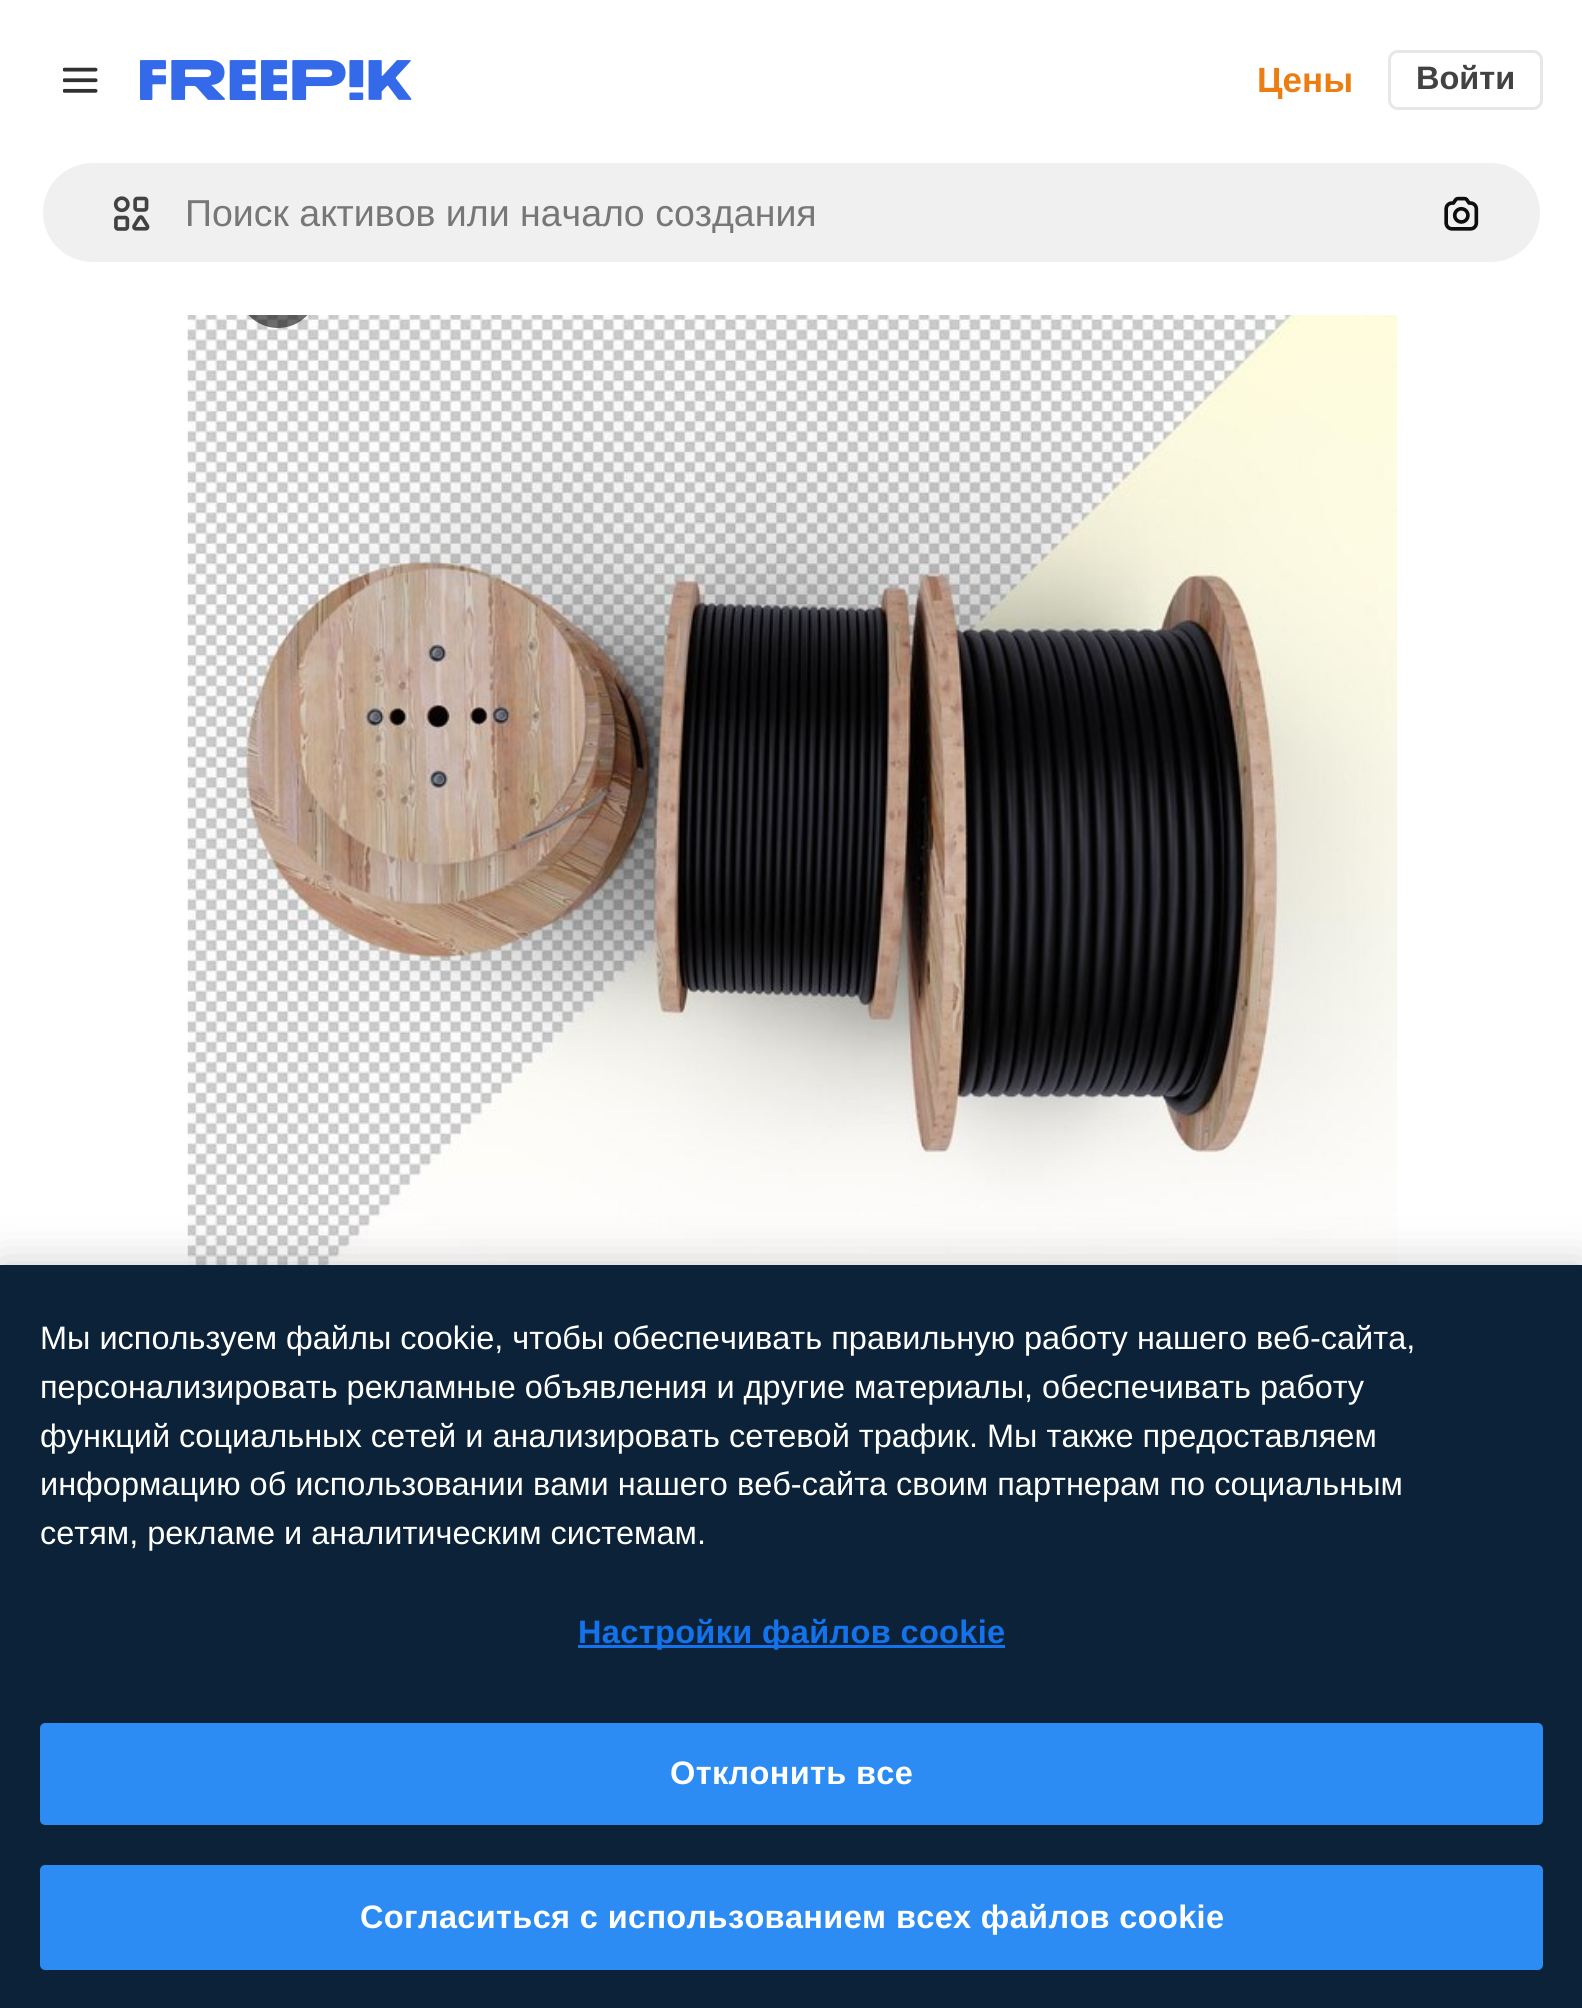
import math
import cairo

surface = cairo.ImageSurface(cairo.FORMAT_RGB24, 1582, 2008)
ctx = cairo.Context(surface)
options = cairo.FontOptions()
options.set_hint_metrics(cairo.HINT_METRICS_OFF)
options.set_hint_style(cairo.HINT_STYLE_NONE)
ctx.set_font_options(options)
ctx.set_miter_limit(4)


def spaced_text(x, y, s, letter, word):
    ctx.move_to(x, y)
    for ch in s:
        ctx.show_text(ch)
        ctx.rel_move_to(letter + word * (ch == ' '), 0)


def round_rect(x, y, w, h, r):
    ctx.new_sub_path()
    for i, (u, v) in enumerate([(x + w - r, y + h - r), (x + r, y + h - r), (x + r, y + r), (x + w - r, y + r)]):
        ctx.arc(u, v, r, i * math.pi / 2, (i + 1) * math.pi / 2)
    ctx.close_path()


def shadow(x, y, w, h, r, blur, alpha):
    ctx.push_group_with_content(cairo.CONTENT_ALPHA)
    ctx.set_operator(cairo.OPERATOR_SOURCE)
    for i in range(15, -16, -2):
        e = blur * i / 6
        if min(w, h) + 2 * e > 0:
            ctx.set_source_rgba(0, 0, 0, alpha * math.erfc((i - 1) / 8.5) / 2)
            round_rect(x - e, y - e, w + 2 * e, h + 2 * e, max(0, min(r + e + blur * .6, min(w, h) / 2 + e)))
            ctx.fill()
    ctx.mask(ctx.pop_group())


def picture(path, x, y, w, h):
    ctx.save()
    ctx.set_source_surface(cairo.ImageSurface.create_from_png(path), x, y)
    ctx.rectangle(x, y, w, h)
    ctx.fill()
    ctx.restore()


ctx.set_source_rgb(1, 1, 1)
ctx.paint()
picture("img5.png", 187, 315, 1211, 950)
ctx.set_source_rgba(0.051, 0.051, 0.051, 0.6)
ctx.arc(278, 288, 40, 0, 2 * math.pi)
ctx.fill()
ctx.set_source_rgb(1, 1, 1)
ctx.rectangle(238, 248, 80, 67)
ctx.fill()
picture("img1.png", 63, 67, 35, 26)
picture("img2.png", 140, 60, 272, 40)
ctx.select_font_face("Liberation Sans", cairo.FONT_SLANT_NORMAL, cairo.FONT_WEIGHT_BOLD)
ctx.set_font_size(35)
ctx.set_source_rgb(0.918, 0.494, 0.067)
ctx.move_to(1257, 92)
ctx.show_text("Цены")
round_rect(1389.5, 51.5, 152, 57, 8.5)
ctx.set_source_rgb(0.906, 0.906, 0.906)
ctx.set_line_width(3)
ctx.stroke()
ctx.set_font_size(32.5)
ctx.set_source_rgb(0.259, 0.259, 0.259)
ctx.move_to(1416, 89)
ctx.show_text("Войти")
ctx.set_source_rgb(0.941, 0.941, 0.941)
round_rect(41.5, 161.5, 1500, 102, 51)
ctx.fill_preserve()
ctx.set_source_rgb(1, 1, 1)
ctx.stroke()
picture("img3.png", 113, 196, 37, 35)
ctx.save()
ctx.rectangle(185, 190, 1230, 43)
ctx.clip()
ctx.select_font_face("Liberation Sans")
ctx.set_font_size(37.5)
ctx.set_source_rgb(0.467, 0.467, 0.467)
ctx.move_to(185, 226)
ctx.show_text("Поиск активов или начало создания")
ctx.restore()
picture("img4.png", 1444, 196, 35, 35)
ctx.set_source_rgb(0, 0, 0)
shadow(0, 1265, 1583, 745, 0, 22.5, 0.2)
ctx.set_source_rgb(0.043, 0.133, 0.224)
ctx.rectangle(0, 1265, 1582, 743)
ctx.fill()
ctx.select_font_face("Liberation Sans")
ctx.set_source_rgb(1, 1, 1)
ctx.move_to(40, 1349)
ctx.show_text("Мы используем файлы cookie, чтобы обеспечивать правильную работу нашего веб-сайта,")
ctx.move_to(40, 1398)
ctx.show_text("персонализировать рекламные объявления и другие материалы, обеспечивать работу")
ctx.move_to(40, 1447)
ctx.show_text("функций социальных сетей и анализировать сетевой трафик. Мы также предоставляем")
ctx.move_to(40, 1495)
ctx.show_text("информацию об использовании вами нашего веб-сайта своим партнерам по социальным")
ctx.move_to(40, 1544)
ctx.show_text("сетям, рекламе и аналитическим системам.")
ctx.set_source_rgb(0.071, 0.451, 0.922)
ctx.rectangle(578, 1645, 427, 3)
ctx.fill()
ctx.select_font_face("Liberation Sans", cairo.FONT_SLANT_NORMAL, cairo.FONT_WEIGHT_BOLD)
spaced_text(578, 1643, "Настройки файлов cookie", 0.35, 0)
ctx.set_source_rgb(0.173, 0.549, 0.957)
round_rect(41.5, 1724.5, 1500, 99, 3.5)
ctx.fill_preserve()
ctx.stroke()
ctx.set_source_rgb(1, 1, 1)
spaced_text(670, 1784, "Отклонить все", 0.35, 0)
ctx.set_source_rgb(0.173, 0.549, 0.957)
round_rect(41.5, 1866.5, 1500, 102, 3.5)
ctx.fill_preserve()
ctx.stroke()
ctx.set_source_rgb(1, 1, 1)
spaced_text(360, 1928, "Согласиться с использованием всех файлов cookie", 0.35, 0)
surface.write_to_png("page.png")
